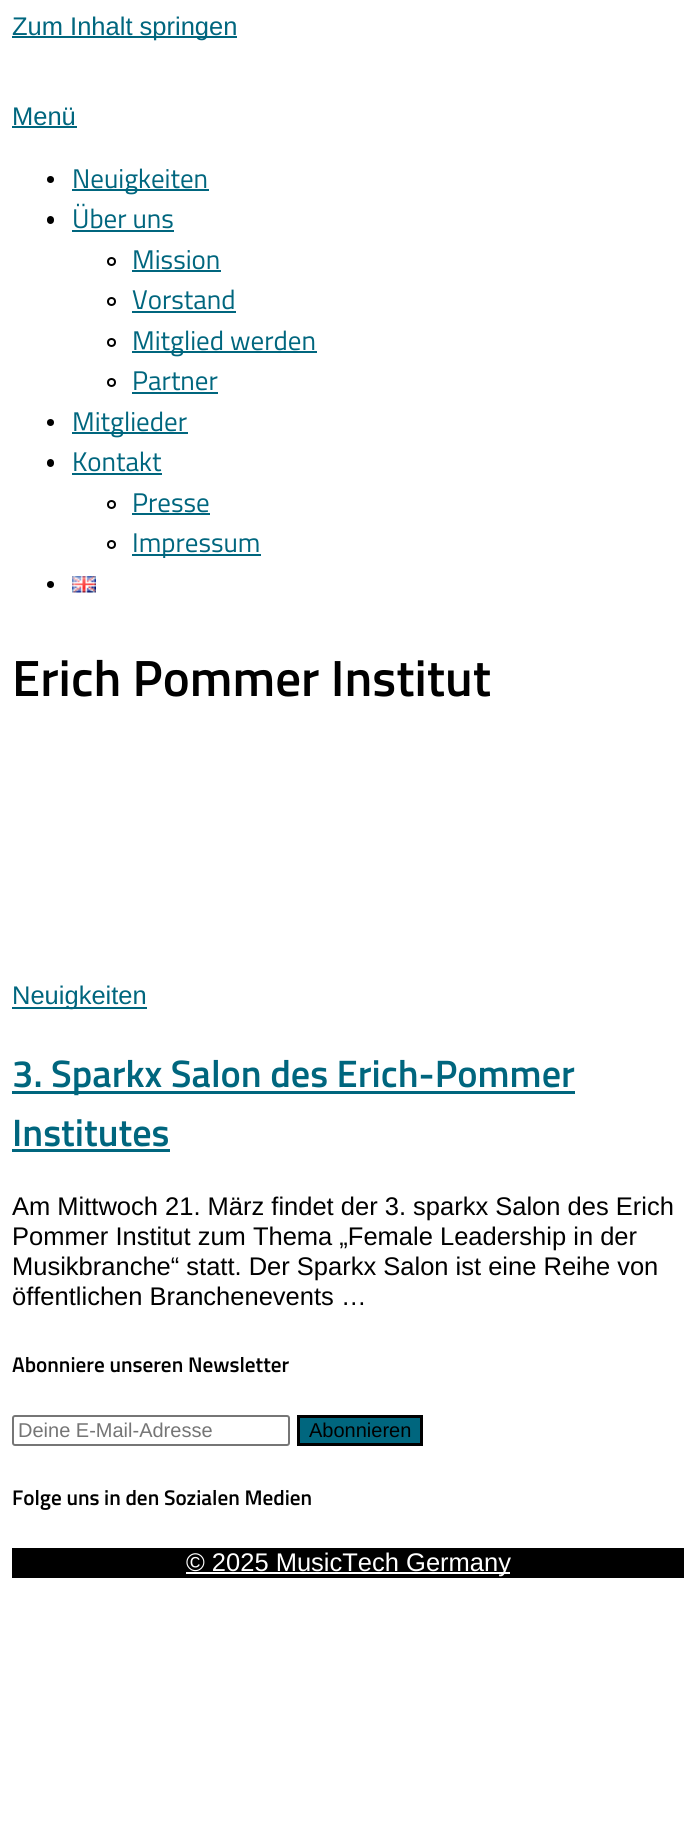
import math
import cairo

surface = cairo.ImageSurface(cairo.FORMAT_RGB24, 695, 1829)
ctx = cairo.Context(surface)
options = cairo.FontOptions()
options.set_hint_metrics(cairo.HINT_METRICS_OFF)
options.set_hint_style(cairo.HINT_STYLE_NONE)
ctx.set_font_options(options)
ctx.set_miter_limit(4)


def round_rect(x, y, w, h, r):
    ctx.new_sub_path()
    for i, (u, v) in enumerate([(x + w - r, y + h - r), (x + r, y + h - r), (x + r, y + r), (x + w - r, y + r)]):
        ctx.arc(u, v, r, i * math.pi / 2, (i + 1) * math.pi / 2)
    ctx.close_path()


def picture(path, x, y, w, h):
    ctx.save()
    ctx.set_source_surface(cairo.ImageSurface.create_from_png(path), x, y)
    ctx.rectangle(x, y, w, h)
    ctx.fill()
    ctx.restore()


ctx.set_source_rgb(1, 1, 1)
ctx.paint()
ctx.set_source_rgb(0, 0.4, 0.494)
ctx.rectangle(12, 36, 225, 2)
ctx.fill()
ctx.select_font_face("Liberation Sans")
ctx.set_font_size(25.5)
ctx.move_to(12, 35)
ctx.show_text("Zum Inhalt springen")
ctx.move_to(12, 125)
ctx.show_text("Menü")
ctx.rectangle(12, 126, 65, 2)
ctx.fill()
ctx.set_source_rgb(0, 0, 0)
ctx.arc(50.5, 179.5, 3.5, 0, 2 * math.pi)
ctx.fill()
ctx.set_source_rgb(0, 0.4, 0.494)
ctx.rectangle(72, 189, 137, 2)
ctx.fill()
ctx.select_font_face("Titillium Web")
ctx.set_font_size(27)
ctx.move_to(72, 188)
ctx.show_text("Neuigkeiten")
ctx.set_source_rgb(0, 0, 0)
round_rect(47, 216, 7, 8, 3.5)
ctx.fill()
ctx.set_source_rgb(0, 0.4, 0.494)
ctx.move_to(72, 228)
ctx.show_text("Über uns")
ctx.rectangle(72, 230, 102, 2)
ctx.fill()
ctx.arc(111.5, 261.5, 3.5, 0, 2 * math.pi)
ctx.set_source_rgb(0, 0, 0)
ctx.stroke()
ctx.set_source_rgb(0, 0.4, 0.494)
ctx.move_to(132, 269)
ctx.show_text("Mission")
ctx.rectangle(132, 270, 89, 2)
ctx.fill()
ctx.arc(111.5, 301.5, 3.5, 0, 2 * math.pi)
ctx.set_source_rgb(0, 0, 0)
ctx.stroke()
ctx.set_source_rgb(0, 0.4, 0.494)
ctx.move_to(132, 309)
ctx.show_text("Vorstand")
ctx.rectangle(132, 311, 104, 2)
ctx.fill()
ctx.arc(111.5, 342.5, 3.5, 0, 2 * math.pi)
ctx.set_source_rgb(0, 0, 0)
ctx.stroke()
ctx.set_source_rgb(0, 0.4, 0.494)
ctx.rectangle(132, 351, 185, 2)
ctx.fill()
ctx.move_to(132, 350)
ctx.show_text("Mitglied werden")
ctx.new_path()
ctx.arc(111.5, 382.5, 3.5, 0, 2 * math.pi)
ctx.set_source_rgb(0, 0, 0)
ctx.stroke()
ctx.set_source_rgb(0, 0.4, 0.494)
ctx.move_to(132, 390)
ctx.show_text("Partner")
ctx.rectangle(132, 392, 86, 2)
ctx.fill()
ctx.set_source_rgb(0, 0, 0)
ctx.arc(50.5, 422.5, 3.5, 0, 2 * math.pi)
ctx.fill()
ctx.set_source_rgb(0, 0.4, 0.494)
ctx.rectangle(72, 432, 116, 2)
ctx.fill()
ctx.move_to(72, 431)
ctx.show_text("Mitglieder")
ctx.set_source_rgb(0, 0, 0)
round_rect(47, 459, 7, 8, 3.5)
ctx.fill()
ctx.set_source_rgb(0, 0.4, 0.494)
ctx.move_to(72, 471)
ctx.show_text("Kontakt")
ctx.rectangle(72, 473, 90, 2)
ctx.fill()
ctx.arc(111.5, 504.5, 3.5, 0, 2 * math.pi)
ctx.set_source_rgb(0, 0, 0)
ctx.stroke()
ctx.set_source_rgb(0, 0.4, 0.494)
ctx.move_to(132, 512)
ctx.show_text("Presse")
ctx.rectangle(132, 513, 78, 2)
ctx.fill()
ctx.arc(111.5, 544.5, 3.5, 0, 2 * math.pi)
ctx.set_source_rgb(0, 0, 0)
ctx.stroke()
ctx.set_source_rgb(0, 0.4, 0.494)
ctx.rectangle(132, 554, 129, 2)
ctx.fill()
ctx.move_to(132, 552)
ctx.show_text("Impressum")
ctx.set_source_rgb(0, 0, 0)
ctx.new_path()
ctx.arc(50.5, 584.5, 3.5, 0, 2 * math.pi)
ctx.fill()
picture("img1.png", 72, 576, 24, 17)
ctx.select_font_face("Titillium Web SemiBold")
ctx.set_font_size(51)
ctx.move_to(12, 696)
ctx.show_text("Erich Pommer Institut")
ctx.set_source_rgb(0, 0.4, 0.494)
ctx.rectangle(12, 1007, 135, 2)
ctx.fill()
ctx.select_font_face("Liberation Sans")
ctx.set_font_size(25.5)
ctx.move_to(12, 1004)
ctx.show_text("Neuigkeiten")
ctx.rectangle(12, 1091, 563, 3)
ctx.fill()
ctx.select_font_face("Titillium Web SemiBold")
ctx.set_font_size(38.25)
ctx.move_to(12, 1087)
ctx.show_text("3. Sparkx Salon des Erich-Pommer")
ctx.move_to(12, 1146)
ctx.show_text("Institutes")
ctx.rectangle(12, 1149, 158, 3)
ctx.fill()
ctx.select_font_face("Liberation Sans")
ctx.set_font_size(25.5)
ctx.set_source_rgb(0, 0, 0)
ctx.move_to(12, 1215)
ctx.show_text("Am Mittwoch 21. März findet der 3. sparkx Salon des Erich")
ctx.move_to(12, 1245)
ctx.show_text("Pommer Institut zum Thema „Female Leadership in der")
ctx.move_to(12, 1275)
ctx.show_text("Musikbranche“ statt. Der Sparkx Salon ist eine Reihe von")
ctx.move_to(12, 1305)
ctx.show_text("öffentlichen Branchenevents …")
ctx.select_font_face("Titillium Web SemiBold")
ctx.set_font_size(21.2)
ctx.move_to(12, 1372)
ctx.show_text("Abonniere unseren Newsletter")
round_rect(13, 1416, 276, 29, 2)
ctx.set_source_rgb(0.463, 0.463, 0.463)
ctx.stroke()
ctx.select_font_face("Liberation Sans")
ctx.set_font_size(20)
ctx.set_source_rgb(0.459, 0.459, 0.459)
ctx.move_to(18, 1437)
ctx.show_text("Deine E-Mail-Adresse")
ctx.set_source_rgb(0, 0.4, 0.494)
ctx.rectangle(298.5, 1416.5, 123, 28)
ctx.fill_preserve()
ctx.set_source_rgb(0, 0, 0)
ctx.set_line_width(3)
ctx.stroke()
ctx.move_to(309, 1437)
ctx.show_text("Abonnieren")
ctx.select_font_face("Titillium Web SemiBold")
ctx.set_font_size(21.2)
ctx.move_to(12, 1505)
ctx.show_text("Folge uns in den Sozialen Medien")
ctx.rectangle(12, 1548, 672, 30)
ctx.fill()
ctx.set_source_rgb(1, 1, 1)
ctx.rectangle(186, 1572, 324, 2)
ctx.fill()
ctx.select_font_face("Liberation Sans")
ctx.set_font_size(25.5)
ctx.move_to(186, 1571)
ctx.show_text("© 2025 MusicTech Germany")
surface.write_to_png("page.png")
